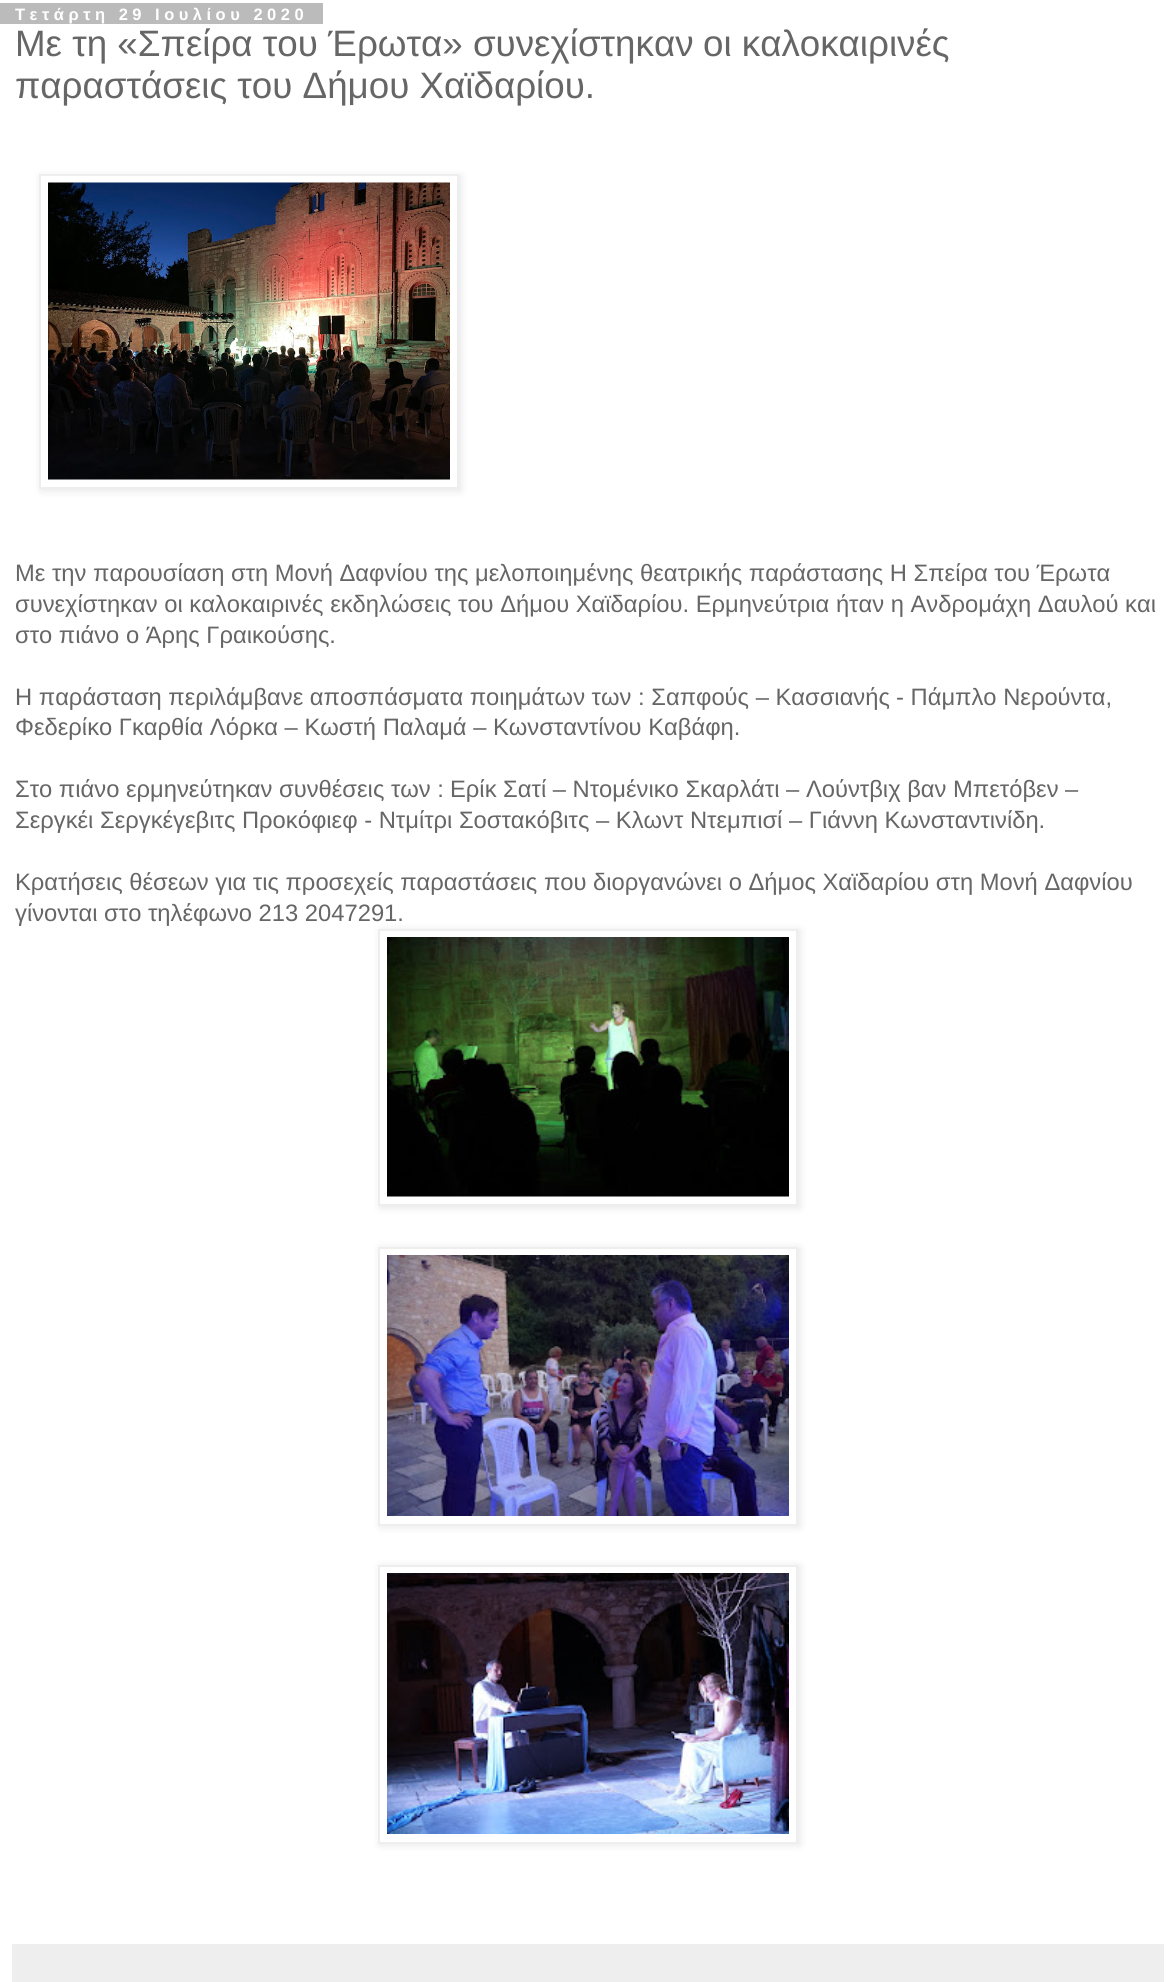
import math
import cairo

surface = cairo.ImageSurface(cairo.FORMAT_RGB24, 1175, 1982)
ctx = cairo.Context(surface)
options = cairo.FontOptions()
options.set_hint_metrics(cairo.HINT_METRICS_OFF)
options.set_hint_style(cairo.HINT_STYLE_NONE)
ctx.set_font_options(options)
ctx.set_miter_limit(4)


def spaced_text(x, y, s, letter, word):
    ctx.move_to(x, y)
    for ch in s:
        ctx.show_text(ch)
        ctx.rel_move_to(letter + word * (ch == ' '), 0)


def round_rect(x, y, w, h, r):
    ctx.new_sub_path()
    for i, (u, v) in enumerate([(x + w - r, y + h - r), (x + r, y + h - r), (x + r, y + r), (x + w - r, y + r)]):
        ctx.arc(u, v, r, i * math.pi / 2, (i + 1) * math.pi / 2)
    ctx.close_path()


def shadow(x, y, w, h, r, blur, alpha):
    ctx.push_group_with_content(cairo.CONTENT_ALPHA)
    ctx.set_operator(cairo.OPERATOR_SOURCE)
    for i in range(15, -16, -2):
        e = blur * i / 6
        if min(w, h) + 2 * e > 0:
            ctx.set_source_rgba(0, 0, 0, alpha * math.erfc((i - 1) / 8.5) / 2)
            round_rect(x - e, y - e, w + 2 * e, h + 2 * e, max(0, min(r + e + blur * .6, min(w, h) / 2 + e)))
            ctx.fill()
    ctx.mask(ctx.pop_group())


def picture(path, x, y, w, h):
    ctx.save()
    ctx.set_source_surface(cairo.ImageSurface.create_from_png(path), x, y)
    ctx.rectangle(x, y, w, h)
    ctx.fill()
    ctx.restore()


ctx.set_source_rgb(1, 1, 1)
ctx.paint()
ctx.set_source_rgb(0.733, 0.733, 0.733)
ctx.rectangle(0, 3, 323, 21)
ctx.fill()
ctx.select_font_face("Liberation Sans", cairo.FONT_SLANT_NORMAL, cairo.FONT_WEIGHT_BOLD)
ctx.set_font_size(16.5)
ctx.set_source_rgb(1, 1, 1)
spaced_text(15, 20, "Τετάρτη 29 Ιουλίου 2020", 4.5, 0)
ctx.select_font_face("Liberation Sans")
ctx.set_font_size(36.75)
ctx.set_source_rgb(0.4, 0.4, 0.4)
ctx.move_to(15, 56)
ctx.show_text("Με τη «Σπείρα του Έρωτα» συνεχίστηκαν")
ctx.move_to(703, 56)
ctx.show_text("οι καλοκαιρινές")
ctx.move_to(15, 98)
ctx.show_text("παραστάσεις του Δήμου Χαϊδαρίου.")
ctx.save()
ctx.set_fill_rule(cairo.FILL_RULE_EVEN_ODD)
ctx.new_path()
ctx.move_to(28, 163)
ctx.line_to(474, 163)
ctx.line_to(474, 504)
ctx.line_to(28, 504)
ctx.close_path()
ctx.move_to(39, 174)
ctx.line_to(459, 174)
ctx.line_to(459, 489)
ctx.line_to(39, 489)
ctx.close_path()
ctx.clip()
ctx.set_source_rgb(0, 0, 0)
shadow(41, 176, 420, 315, 0, 4, 0.1)
ctx.restore()
ctx.rectangle(40, 175, 418, 313)
ctx.set_source_rgb(0.933, 0.933, 0.933)
ctx.stroke()
picture("img1.png", 48, 182, 402, 298)
ctx.set_font_size(23.75)
ctx.set_source_rgb(0.4, 0.4, 0.4)
ctx.move_to(15, 581)
ctx.show_text("Με την παρουσίαση στη Μονή Δαφνίου της μελοποιημένης θεατρικής παράστασης Η Σπείρα του Έρωτα")
ctx.move_to(15, 612)
ctx.show_text("συνεχίστηκαν οι καλοκαιρινές εκδηλώσεις του Δήμου Χαϊδαρίου. Ερμηνεύτρια ήταν η Ανδρομάχη Δαυλού και")
ctx.move_to(15, 643)
ctx.show_text("στο πιάνο ο Άρης Γραικούσης.")
ctx.move_to(15, 705)
ctx.show_text("Η παράσταση περιλάμβανε αποσπάσματα ποιημάτων των : Σαπφούς – Κασσιανής")
ctx.move_to(896, 705)
ctx.show_text("- Πάμπλο Νερούντα,")
ctx.move_to(15, 735)
ctx.show_text("Φεδερίκο Γκαρθία Λόρκα – Κωστή Παλαμά – Κωνσταντίνου Καβάφη.")
ctx.move_to(15, 797)
ctx.show_text("Στο πιάνο ερμηνεύτηκαν συνθέσεις των :")
ctx.move_to(450, 797)
ctx.show_text("Ερίκ Σατί – Ντομένικο Σκαρλάτι – Λούντβιχ βαν Μπετόβεν")
ctx.move_to(1065, 797)
ctx.show_text("–")
ctx.move_to(15, 828)
ctx.show_text("Σεργκέι Σεργκέγεβιτς Προκόφιεφ - Ντμίτρι Σοστακόβιτς – Κλωντ Ντεμπισί")
ctx.move_to(789, 828)
ctx.show_text("– Γιάννη Κωνσταντινίδη.")
ctx.move_to(15, 890)
ctx.show_text("Κρατήσεις θέσεων για τις προσεχείς παραστάσεις που διοργανώνει ο Δήμος Χαϊδαρίου στη Μονή Δαφνίου")
ctx.move_to(15, 921)
ctx.show_text("γίνονται στο τηλέφωνο 213 2047291.")
ctx.save()
ctx.set_fill_rule(cairo.FILL_RULE_EVEN_ODD)
ctx.new_path()
ctx.move_to(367, 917)
ctx.line_to(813, 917)
ctx.line_to(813, 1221)
ctx.line_to(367, 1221)
ctx.close_path()
ctx.move_to(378, 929)
ctx.line_to(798, 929)
ctx.line_to(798, 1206)
ctx.line_to(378, 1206)
ctx.close_path()
ctx.clip()
ctx.set_source_rgb(0, 0, 0)
shadow(380, 930, 420, 278, 0, 4, 0.1)
ctx.restore()
ctx.rectangle(379, 930, 418, 275)
ctx.set_source_rgb(0.933, 0.933, 0.933)
ctx.stroke()
picture("img2.png", 387, 937, 402, 260)
ctx.set_source_rgb(0, 0, 0)
shadow(380, 1248, 420, 279, 0, 4, 0.1)
ctx.set_source_rgb(1, 1, 1)
ctx.rectangle(379, 1248, 418, 277)
ctx.fill_preserve()
ctx.set_source_rgb(0.933, 0.933, 0.933)
ctx.stroke()
picture("img3.png", 387, 1255, 402, 261)
ctx.set_source_rgb(0, 0, 0)
shadow(380, 1566, 420, 279, 0, 4, 0.1)
ctx.set_source_rgb(1, 1, 1)
ctx.rectangle(379, 1566, 418, 277)
ctx.fill_preserve()
ctx.set_source_rgb(0.933, 0.933, 0.933)
ctx.stroke()
picture("img4.png", 387, 1573, 402, 261)
ctx.rectangle(12, 1944, 1152, 38)
ctx.fill()
surface.write_to_png("page.png")
